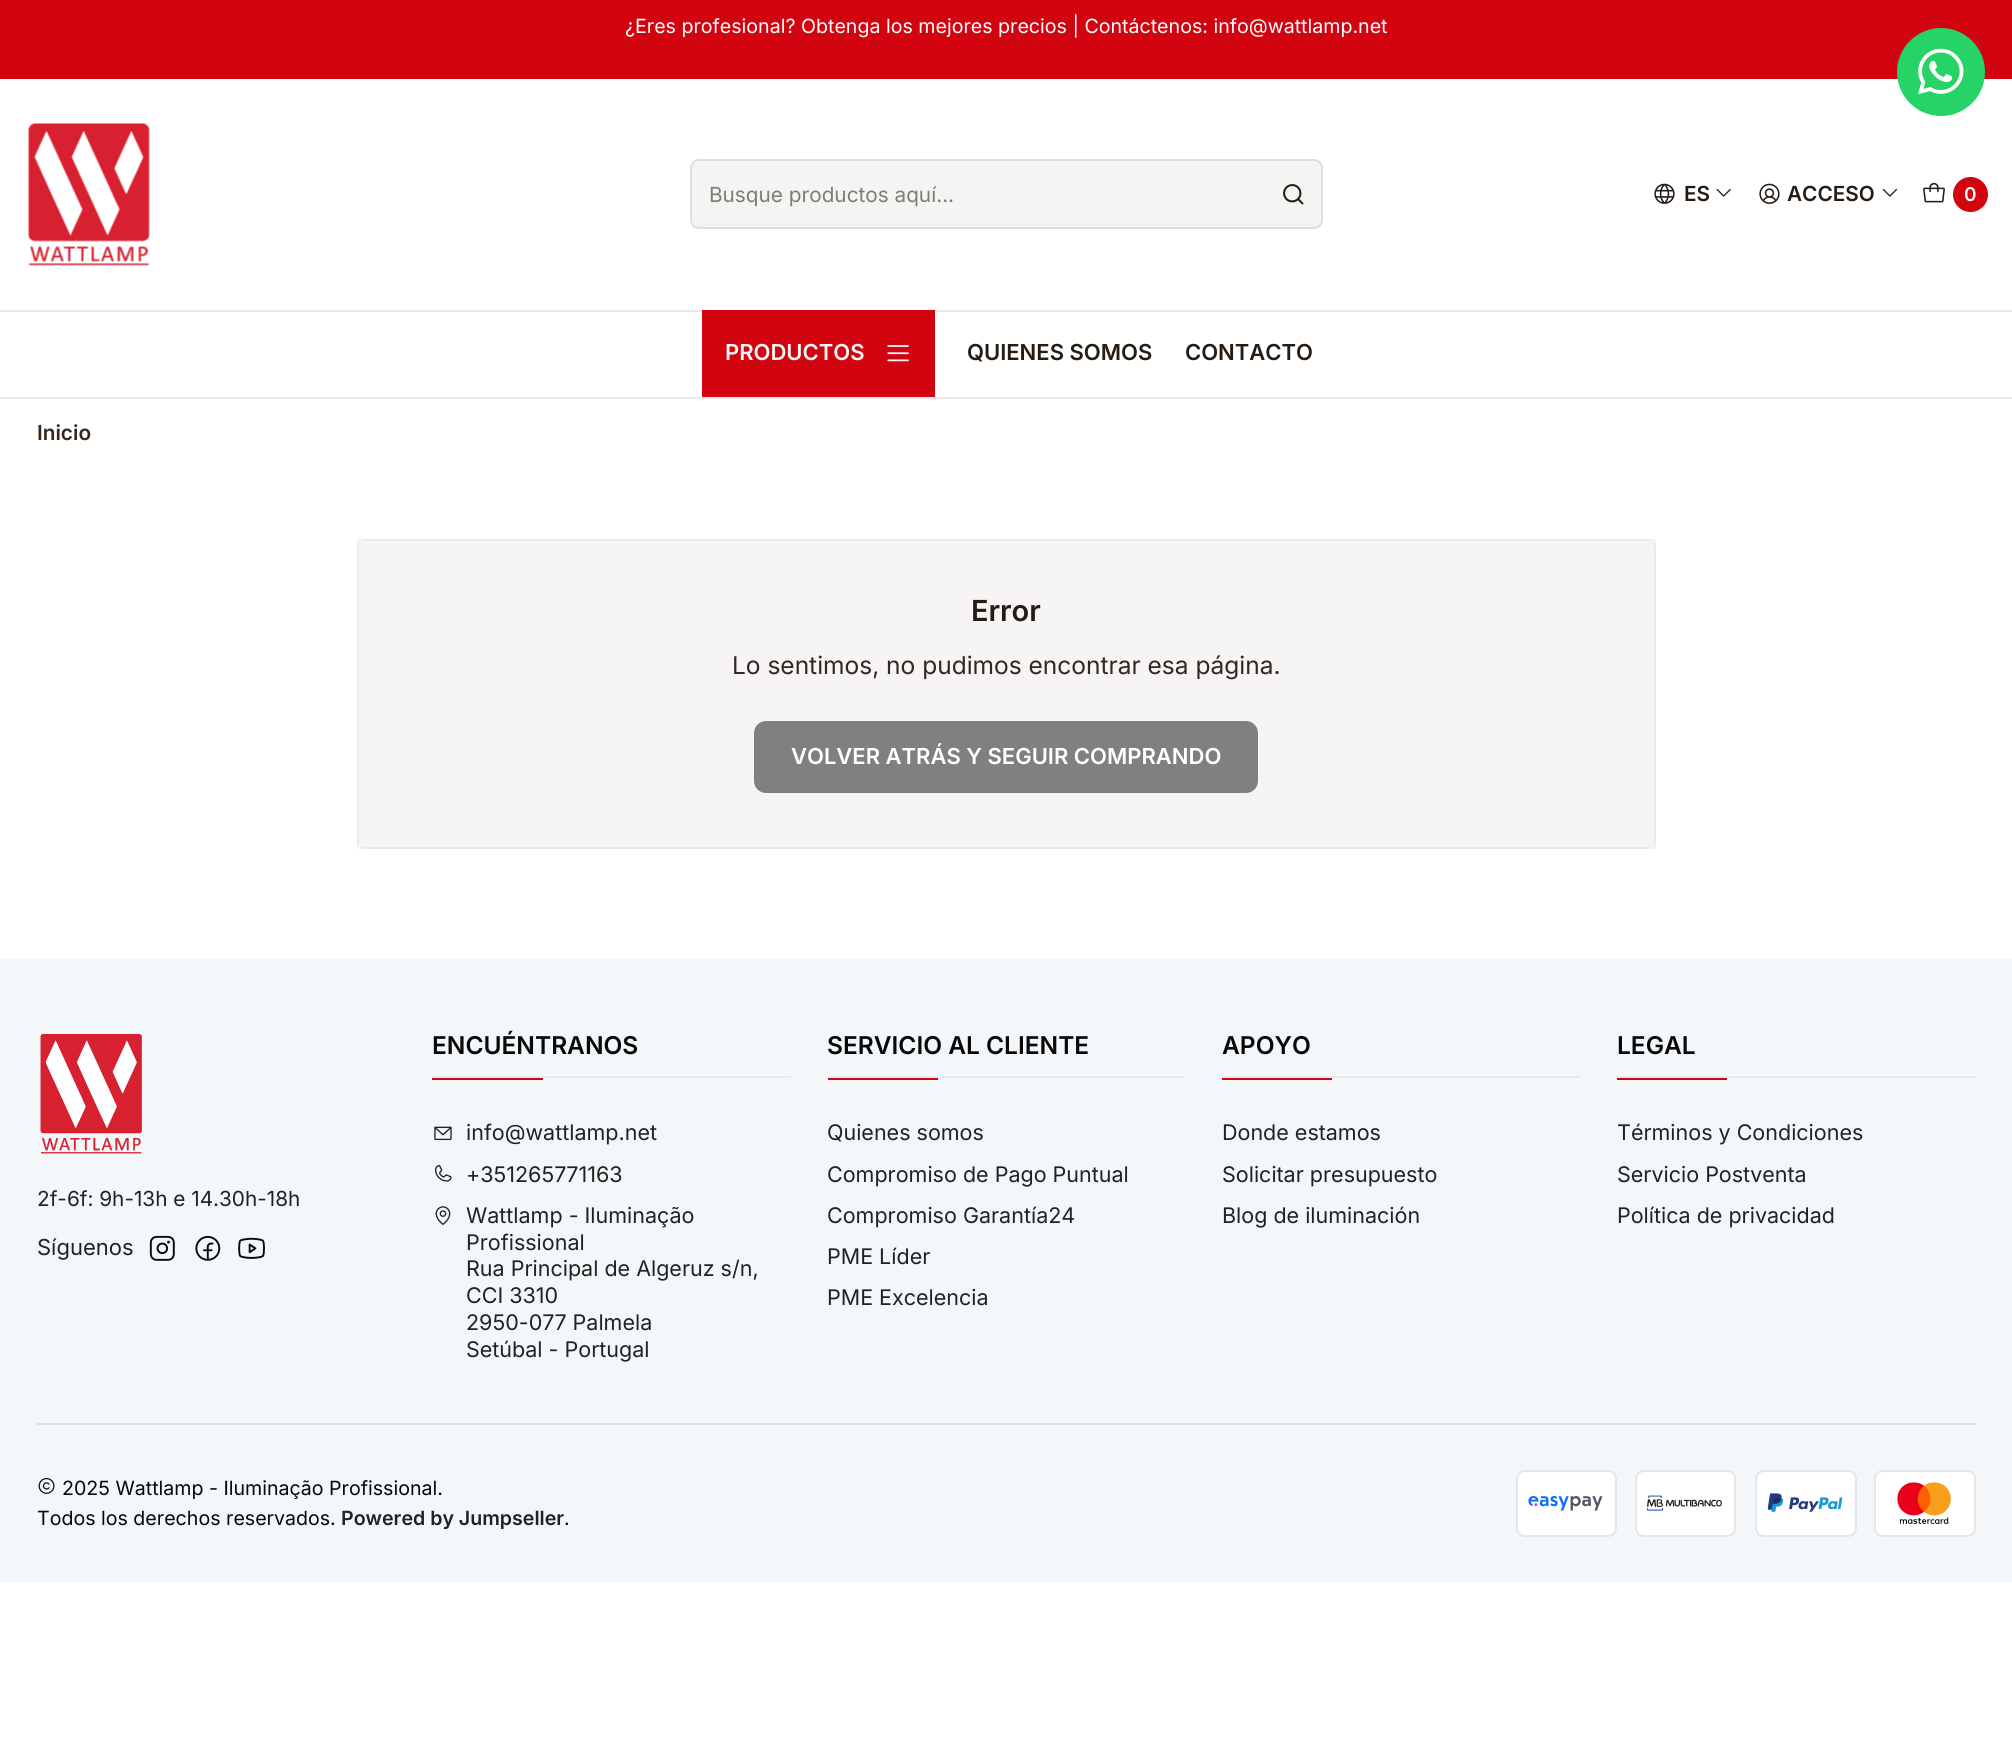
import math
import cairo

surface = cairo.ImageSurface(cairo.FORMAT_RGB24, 2012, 1742)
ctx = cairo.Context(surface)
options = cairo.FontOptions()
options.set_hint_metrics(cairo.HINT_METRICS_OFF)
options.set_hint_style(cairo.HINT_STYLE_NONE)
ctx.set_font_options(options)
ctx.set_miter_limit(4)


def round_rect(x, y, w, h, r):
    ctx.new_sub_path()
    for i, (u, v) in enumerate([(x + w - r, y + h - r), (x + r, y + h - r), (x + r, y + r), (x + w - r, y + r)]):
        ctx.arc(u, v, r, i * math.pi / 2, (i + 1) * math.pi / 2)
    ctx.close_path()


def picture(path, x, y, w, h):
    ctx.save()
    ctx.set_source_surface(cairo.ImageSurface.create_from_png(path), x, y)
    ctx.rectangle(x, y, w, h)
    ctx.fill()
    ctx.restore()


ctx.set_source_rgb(1, 1, 1)
ctx.paint()
ctx.set_source_rgb(0.824, 0.016, 0.059)
ctx.rectangle(0, 0, 2012, 79)
ctx.fill()
ctx.select_font_face("Inter")
ctx.set_font_size(19.6)
ctx.set_source_rgb(1, 1, 1)
ctx.move_to(625, 33)
ctx.show_text("¿Eres profesional? Obtenga los mejores precios | Contáctenos: info@wattlamp.net")
ctx.set_source_rgb(0.914, 0.91, 0.91)
ctx.rectangle(0, 397, 2012, 2)
ctx.fill()
picture("img1.png", 28, 123, 122, 143)
ctx.set_source_rgb(0.957, 0.957, 0.953)
round_rect(690, 159, 633, 70, 9)
ctx.fill()
round_rect(691, 160, 631, 68, 8)
ctx.set_source_rgba(0.149, 0.11, 0.082, 0.1)
ctx.stroke()
ctx.set_font_size(20.75)
ctx.set_source_rgb(0.506, 0.482, 0.463)
ctx.move_to(709, 202)
ctx.show_text("Busque productos aquí...")
picture("img2.png", 1283, 184, 21, 21)
picture("img3.png", 1654, 183, 21, 21)
ctx.select_font_face("Inter SemiBold")
ctx.set_source_rgb(0.149, 0.11, 0.082)
ctx.move_to(1684, 201)
ctx.show_text("ES")
picture("img4.png", 1716, 188, 15, 9)
picture("img5.png", 1759, 183, 21, 21)
ctx.move_to(1787, 201)
ctx.show_text("ACCESO")
picture("img6.png", 1882, 188, 15, 9)
picture("img7.png", 1923, 182, 22, 21)
ctx.set_source_rgb(0.824, 0.016, 0.059)
ctx.arc(1970.5, 194.5, 17.5, 0, 2 * math.pi)
ctx.fill()
ctx.set_font_size(19)
ctx.set_source_rgb(0.961, 0.961, 0.961)
ctx.move_to(1964, 201)
ctx.show_text("0")
ctx.set_source_rgb(0.914, 0.91, 0.91)
ctx.rectangle(0, 310, 2012, 2)
ctx.fill()
ctx.set_source_rgb(0.824, 0.016, 0.059)
ctx.rectangle(702, 310, 233, 87)
ctx.fill()
ctx.set_font_size(22)
ctx.set_source_rgb(0.961, 0.961, 0.961)
ctx.move_to(725, 360)
ctx.show_text("PRODUCTOS")
picture("img8.png", 887, 345, 22, 17)
ctx.set_source_rgb(0.149, 0.11, 0.082)
ctx.move_to(967, 360)
ctx.show_text("QUIENES SOMOS")
ctx.move_to(1185, 360)
ctx.show_text("CONTACTO")
ctx.set_font_size(20.75)
ctx.set_source_rgb(0.208, 0.153, 0.114)
ctx.move_to(37, 440)
ctx.show_text("Inicio")
ctx.set_source_rgb(0.961, 0.957, 0.957)
round_rect(357, 539, 1299, 310, 9)
ctx.fill()
ctx.rectangle(358, 540, 1297, 308)
ctx.set_source_rgba(0.149, 0.11, 0.082, 0.05)
ctx.stroke()
ctx.set_font_size(29)
ctx.set_source_rgb(0.149, 0.11, 0.082)
ctx.move_to(971, 621)
ctx.show_text("Error")
ctx.select_font_face("Inter")
ctx.set_font_size(24.5)
ctx.set_source_rgb(0.208, 0.153, 0.114)
ctx.move_to(732, 674)
ctx.show_text("Lo sentimos, no pudimos encontrar esa página.")
ctx.set_source_rgb(0.498, 0.506, 0.502)
round_rect(754, 721, 504, 72, 12)
ctx.fill()
ctx.select_font_face("Inter SemiBold")
ctx.set_font_size(22)
ctx.set_source_rgb(1, 1, 1)
ctx.move_to(791, 764)
ctx.show_text("VOLVER ATRÁS Y SEGUIR COMPRANDO")
ctx.set_source_rgb(0.953, 0.965, 0.973)
ctx.rectangle(0, 959, 2012, 623)
ctx.fill()
picture("img9.png", 40, 1034, 102, 120)
ctx.select_font_face("Inter")
ctx.set_font_size(20.75)
ctx.set_source_rgb(0.133, 0.133, 0.133)
ctx.move_to(37, 1206)
ctx.show_text("2f-6f: 9h-13h e 14.30h-18h")
ctx.set_font_size(22)
ctx.move_to(37, 1255)
ctx.show_text("Síguenos")
picture("img10.png", 149, 1235, 26, 26)
picture("img11.png", 195, 1235, 26, 26)
picture("img12.png", 238, 1237, 27, 22)
ctx.set_source_rgb(0.906, 0.918, 0.925)
ctx.rectangle(432, 1076, 359, 2)
ctx.fill()
ctx.select_font_face("Inter SemiBold")
ctx.set_font_size(24.5)
ctx.set_source_rgb(0.035, 0.035, 0.035)
ctx.move_to(432, 1054)
ctx.show_text("ENCUÉNTRANOS")
ctx.set_source_rgb(0.824, 0.016, 0.059)
ctx.rectangle(432, 1078, 111, 2)
ctx.fill()
picture("img13.png", 434, 1126, 18, 15)
ctx.select_font_face("Inter")
ctx.set_font_size(21.5)
ctx.set_source_rgb(0.133, 0.133, 0.133)
ctx.move_to(466, 1140)
ctx.show_text("info@wattlamp.net")
picture("img14.png", 434, 1164, 18, 18)
ctx.move_to(466, 1182)
ctx.show_text("+351265771163")
picture("img15.png", 435, 1206, 16, 19)
ctx.move_to(466, 1223)
ctx.show_text("Wattlamp - Iluminação")
ctx.move_to(466, 1250)
ctx.show_text("Profissional")
ctx.move_to(466, 1276)
ctx.show_text("Rua Principal de Algeruz s/n,")
ctx.move_to(466, 1303)
ctx.show_text("CCI 3310")
ctx.move_to(466, 1330)
ctx.show_text("2950-077 Palmela")
ctx.move_to(466, 1357)
ctx.show_text("Setúbal - Portugal")
ctx.set_source_rgb(0.906, 0.918, 0.925)
ctx.rectangle(828, 1076, 357, 2)
ctx.fill()
ctx.select_font_face("Inter SemiBold")
ctx.set_font_size(24.5)
ctx.set_source_rgb(0.035, 0.035, 0.035)
ctx.move_to(827, 1054)
ctx.show_text("SERVICIO AL CLIENTE")
ctx.set_source_rgb(0.824, 0.016, 0.059)
ctx.rectangle(828, 1078, 110, 2)
ctx.fill()
ctx.select_font_face("Inter")
ctx.set_font_size(21.5)
ctx.set_source_rgb(0.133, 0.133, 0.133)
ctx.move_to(827, 1140)
ctx.show_text("Quienes somos")
ctx.move_to(827, 1182)
ctx.show_text("Compromiso de Pago Puntual")
ctx.move_to(827, 1223)
ctx.show_text("Compromiso Garantía24")
ctx.move_to(827, 1264)
ctx.show_text("PME Líder")
ctx.move_to(827, 1305)
ctx.show_text("PME Excelencia")
ctx.set_source_rgb(0.906, 0.918, 0.925)
ctx.rectangle(1222, 1076, 358, 2)
ctx.fill()
ctx.select_font_face("Inter SemiBold")
ctx.set_font_size(24.5)
ctx.set_source_rgb(0.035, 0.035, 0.035)
ctx.move_to(1222, 1054)
ctx.show_text("APOYO")
ctx.set_source_rgb(0.824, 0.016, 0.059)
ctx.rectangle(1222, 1078, 110, 2)
ctx.fill()
ctx.select_font_face("Inter")
ctx.set_font_size(21.5)
ctx.set_source_rgb(0.133, 0.133, 0.133)
ctx.move_to(1222, 1140)
ctx.show_text("Donde estamos")
ctx.move_to(1222, 1182)
ctx.show_text("Solicitar presupuesto")
ctx.move_to(1222, 1223)
ctx.show_text("Blog de iluminación")
ctx.set_source_rgb(0.906, 0.918, 0.925)
ctx.rectangle(1617, 1076, 359, 2)
ctx.fill()
ctx.select_font_face("Inter SemiBold")
ctx.set_font_size(24.5)
ctx.set_source_rgb(0.035, 0.035, 0.035)
ctx.move_to(1617, 1054)
ctx.show_text("LEGAL")
ctx.set_source_rgb(0.824, 0.016, 0.059)
ctx.rectangle(1617, 1078, 110, 2)
ctx.fill()
ctx.select_font_face("Inter")
ctx.set_font_size(21.5)
ctx.set_source_rgb(0.133, 0.133, 0.133)
ctx.move_to(1617, 1140)
ctx.show_text("Términos y Condiciones")
ctx.move_to(1617, 1182)
ctx.show_text("Servicio Postventa")
ctx.move_to(1617, 1223)
ctx.show_text("Política de privacidad")
ctx.set_source_rgb(0.863, 0.871, 0.878)
ctx.rectangle(37, 1423, 1939, 2)
ctx.fill()
picture("img16.png", 38, 1478, 17, 16)
ctx.set_font_size(19.6)
ctx.set_source_rgb(0.035, 0.035, 0.035)
ctx.move_to(62, 1495)
ctx.show_text("2025 Wattlamp - Iluminação Profissional.")
ctx.move_to(37, 1525)
ctx.show_text("Todos los derechos reservados.")
ctx.select_font_face("Inter SemiBold")
ctx.set_source_rgb(0.133, 0.133, 0.133)
ctx.move_to(341, 1525)
ctx.show_text("Powered by Jumpseller")
ctx.select_font_face("Inter")
ctx.set_source_rgb(0.035, 0.035, 0.035)
ctx.move_to(564, 1525)
ctx.show_text(".")
ctx.set_source_rgb(1, 1, 1)
round_rect(1516, 1470, 101, 67, 9)
ctx.fill()
round_rect(1517, 1471, 99, 65, 8)
ctx.set_source_rgba(0.035, 0.035, 0.035, 0.1)
ctx.stroke()
picture("img17.png", 1528, 1496, 75, 15)
ctx.set_source_rgb(1, 1, 1)
round_rect(1635, 1470, 101, 67, 9)
ctx.fill()
round_rect(1636, 1471, 99, 65, 8)
ctx.set_source_rgba(0.035, 0.035, 0.035, 0.1)
ctx.stroke()
picture("img18.png", 1646, 1495, 76, 16)
ctx.set_source_rgb(1, 1, 1)
round_rect(1755, 1470, 102, 67, 9)
ctx.fill()
round_rect(1756, 1471, 100, 65, 8)
ctx.set_source_rgba(0.035, 0.035, 0.035, 0.1)
ctx.stroke()
picture("img19.png", 1767, 1493, 76, 19)
ctx.set_source_rgb(1, 1, 1)
round_rect(1874, 1470, 102, 67, 9)
ctx.fill()
round_rect(1875, 1471, 100, 65, 8)
ctx.set_source_rgba(0.035, 0.035, 0.035, 0.1)
ctx.stroke()
picture("img20.png", 1897, 1482, 54, 42)
ctx.set_source_rgb(0.145, 0.827, 0.4)
ctx.arc(1941, 72, 44, 0, 2 * math.pi)
ctx.fill()
picture("img21.png", 1918, 48, 46, 47)
surface.write_to_png("page.png")
